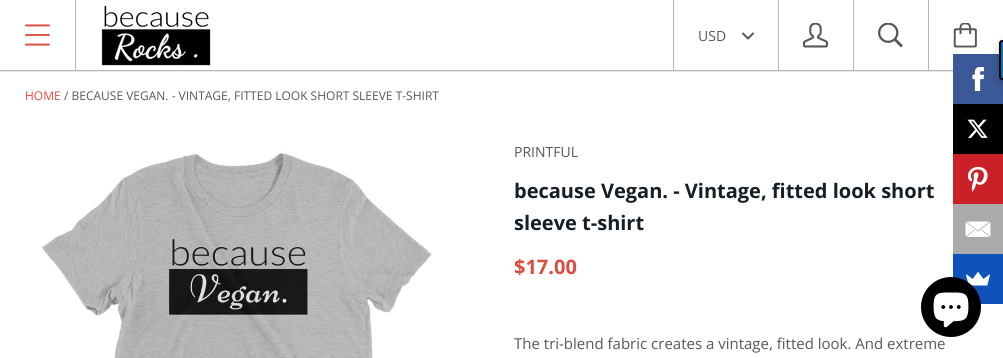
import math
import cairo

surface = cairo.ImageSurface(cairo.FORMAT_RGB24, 1003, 358)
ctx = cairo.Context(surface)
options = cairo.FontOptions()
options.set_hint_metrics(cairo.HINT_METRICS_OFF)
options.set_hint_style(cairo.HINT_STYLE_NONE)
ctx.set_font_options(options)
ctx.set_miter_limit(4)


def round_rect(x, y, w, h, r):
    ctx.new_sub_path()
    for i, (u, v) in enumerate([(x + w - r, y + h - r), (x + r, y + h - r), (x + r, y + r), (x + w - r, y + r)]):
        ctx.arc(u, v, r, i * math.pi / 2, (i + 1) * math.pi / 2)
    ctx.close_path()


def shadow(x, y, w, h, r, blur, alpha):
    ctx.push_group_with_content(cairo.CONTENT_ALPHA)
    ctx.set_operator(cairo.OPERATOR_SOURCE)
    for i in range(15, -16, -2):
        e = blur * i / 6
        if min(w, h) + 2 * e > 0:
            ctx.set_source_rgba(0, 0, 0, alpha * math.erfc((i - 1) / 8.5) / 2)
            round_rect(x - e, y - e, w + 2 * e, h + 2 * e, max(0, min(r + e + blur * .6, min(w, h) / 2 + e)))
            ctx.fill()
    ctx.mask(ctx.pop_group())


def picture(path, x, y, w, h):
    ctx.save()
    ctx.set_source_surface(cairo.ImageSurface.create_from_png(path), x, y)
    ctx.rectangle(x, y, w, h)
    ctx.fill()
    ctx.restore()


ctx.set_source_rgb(1, 1, 1)
ctx.paint()
ctx.set_source_rgb(0.914, 0.914, 0.914)
ctx.rectangle(0, 71, 953, 1)
ctx.fill()
ctx.set_source_rgb(0.718, 0.718, 0.718)
ctx.rectangle(0, 70, 953, 1)
ctx.fill()
picture("img1.png", 25, 24, 25, 22)
ctx.rectangle(75, 0, 1, 70)
ctx.fill()
picture("img2.png", 101, 5, 110, 61)
ctx.rectangle(673, 0, 1, 70)
ctx.fill()
ctx.select_font_face("Open Sans")
ctx.set_font_size(14)
ctx.set_source_rgb(0.345, 0.345, 0.345)
ctx.move_to(698, 41)
ctx.show_text("USD")
picture("img3.png", 742, 32, 12, 8)
ctx.set_source_rgb(0.718, 0.718, 0.718)
ctx.rectangle(778, 0, 1, 70)
ctx.fill()
picture("img4.png", 803, 23, 25, 25)
ctx.rectangle(853, 0, 1, 70)
ctx.fill()
picture("img5.png", 878, 23, 25, 25)
ctx.rectangle(928, 0, 1, 70)
ctx.fill()
picture("img6.png", 953, 23, 24, 25)
ctx.set_font_size(12)
ctx.set_source_rgb(0.863, 0.298, 0.251)
ctx.move_to(25, 100)
ctx.show_text("HOME")
ctx.set_source_rgb(0.345, 0.345, 0.345)
ctx.move_to(64, 100)
ctx.show_text("/ BECAUSE VEGAN. - VINTAGE, FITTED LOOK SHORT SLEEVE T-SHIRT")
picture("img7.png", 42, 151, 390, 207)
ctx.set_font_size(14)
ctx.move_to(514, 157)
ctx.show_text("PRINTFUL")
ctx.select_font_face("Open Sans", cairo.FONT_SLANT_NORMAL, cairo.FONT_WEIGHT_BOLD)
ctx.set_font_size(20)
ctx.set_source_rgb(0.086, 0.118, 0.149)
ctx.move_to(514, 198)
ctx.show_text("because Vegan. - Vintage, fitted look short")
ctx.move_to(514, 230)
ctx.show_text("sleeve t-shirt")
ctx.set_source_rgb(0.863, 0.298, 0.251)
ctx.move_to(514, 274)
ctx.show_text("$17.00")
ctx.select_font_face("Open Sans")
ctx.set_font_size(15)
ctx.set_source_rgb(0.345, 0.345, 0.345)
ctx.move_to(514, 349)
ctx.show_text("The tri-blend fabric creates a vintage, fitted look. And extreme")
ctx.set_source_rgb(0.231, 0.349, 0.596)
ctx.rectangle(953, 54, 50, 50)
ctx.fill()
picture("img8.png", 972, 67, 12, 24)
ctx.set_source_rgb(0, 0, 0)
shadow(999, 44, 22, 40, 3, 5, 0.2)
ctx.set_source_rgb(0, 0.451, 0.718)
ctx.new_path()
ctx.move_to(1002, 41)
ctx.line_to(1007, 41)
ctx.line_to(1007, 79)
ctx.line_to(1002, 79)
ctx.curve_to(1001, 79, 1000, 78, 1000, 77)
ctx.line_to(1000, 43)
ctx.curve_to(1000, 42, 1001, 41, 1002, 41)
ctx.close_path()
ctx.fill_preserve()
ctx.set_source_rgb(0, 0, 0)
ctx.stroke()
ctx.rectangle(953, 104, 50, 50)
ctx.fill()
picture("img9.png", 967, 119, 21, 19)
ctx.set_source_rgb(0.796, 0.125, 0.153)
ctx.rectangle(953, 154, 50, 50)
ctx.fill()
picture("img10.png", 968, 167, 20, 25)
ctx.set_source_rgb(0.667, 0.667, 0.667)
ctx.rectangle(953, 204, 50, 50)
ctx.fill()
picture("img11.png", 965, 221, 26, 16)
ctx.set_source_rgb(0.059, 0.322, 0.729)
ctx.rectangle(953, 254, 50, 50)
ctx.fill()
picture("img12.png", 966, 272, 24, 14)
ctx.set_source_rgb(0, 0, 0)
ctx.arc(951, 307, 30, 0, 2 * math.pi)
ctx.fill()
picture("img13.png", 933, 292, 36, 36)
surface.write_to_png("page.png")
